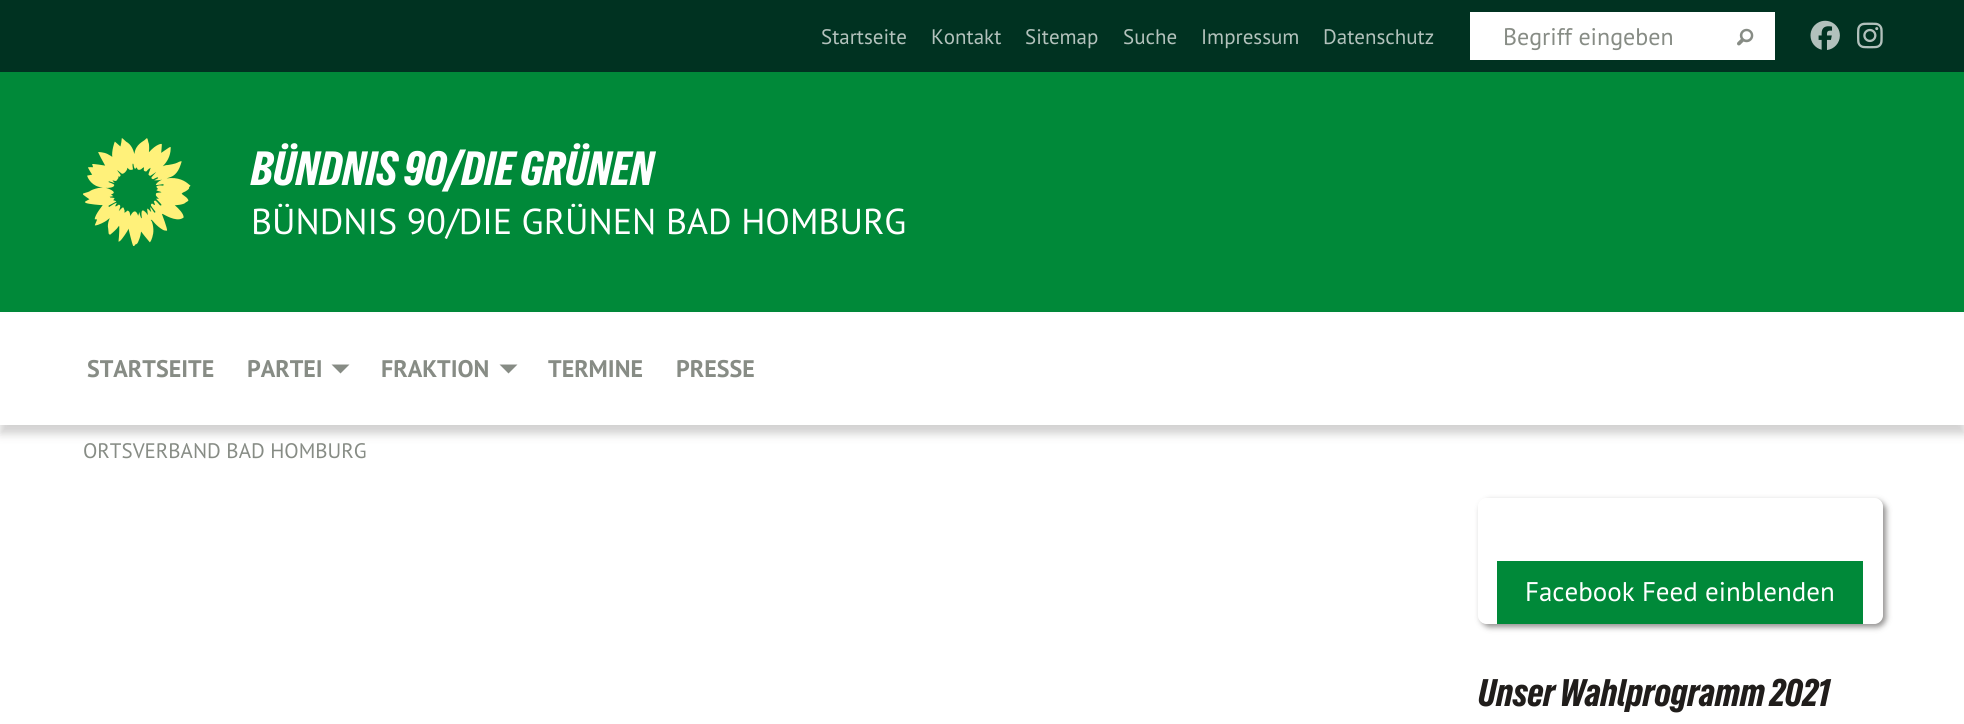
import math
import cairo

surface = cairo.ImageSurface(cairo.FORMAT_RGB24, 1964, 724)
ctx = cairo.Context(surface)
options = cairo.FontOptions()
options.set_hint_metrics(cairo.HINT_METRICS_OFF)
options.set_hint_style(cairo.HINT_STYLE_NONE)
ctx.set_font_options(options)
ctx.set_miter_limit(4)


def round_rect(x, y, w, h, r):
    ctx.new_sub_path()
    for i, (u, v) in enumerate([(x + w - r, y + h - r), (x + r, y + h - r), (x + r, y + r), (x + w - r, y + r)]):
        ctx.arc(u, v, r, i * math.pi / 2, (i + 1) * math.pi / 2)
    ctx.close_path()


def shadow(x, y, w, h, r, blur, alpha):
    ctx.push_group_with_content(cairo.CONTENT_ALPHA)
    ctx.set_operator(cairo.OPERATOR_SOURCE)
    for i in range(15, -16, -2):
        e = blur * i / 6
        if min(w, h) + 2 * e > 0:
            ctx.set_source_rgba(0, 0, 0, alpha * math.erfc((i - 1) / 8.5) / 2)
            round_rect(x - e, y - e, w + 2 * e, h + 2 * e, max(0, min(r + e + blur * .6, min(w, h) / 2 + e)))
            ctx.fill()
    ctx.mask(ctx.pop_group())


def picture(path, x, y, w, h):
    ctx.save()
    ctx.set_source_surface(cairo.ImageSurface.create_from_png(path), x, y)
    ctx.rectangle(x, y, w, h)
    ctx.fill()
    ctx.restore()


ctx.set_source_rgb(1, 1, 1)
ctx.paint()
ctx.set_source_rgb(0, 0.196, 0.129)
ctx.rectangle(0, 0, 1964, 72)
ctx.fill()
ctx.select_font_face("PT Sans")
ctx.set_font_size(21)
ctx.set_source_rgb(0.702, 0.761, 0.737)
ctx.move_to(821, 44)
ctx.show_text("Startseite")
ctx.move_to(931, 44)
ctx.show_text("Kontakt")
ctx.move_to(1025, 44)
ctx.show_text("Sitemap")
ctx.move_to(1123, 44)
ctx.show_text("Suche")
ctx.move_to(1201, 44)
ctx.show_text("Impressum")
ctx.move_to(1323, 44)
ctx.show_text("Datenschutz")
ctx.set_source_rgb(1, 1, 1)
ctx.rectangle(1470, 12, 305, 48)
ctx.fill()
ctx.set_font_size(24)
ctx.set_source_rgb(0.529, 0.549, 0.522)
ctx.move_to(1503, 45)
ctx.show_text("Begriff eingeben")
picture("img1.png", 1737, 28, 17, 18)
picture("img2.png", 1810, 20, 30, 30)
picture("img3.png", 1857, 22, 26, 27)
ctx.set_source_rgb(0, 0.537, 0.224)
ctx.rectangle(0, 72, 1964, 240)
ctx.fill()
picture("img4.png", 83, 138, 108, 108)
ctx.select_font_face("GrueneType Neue")
ctx.set_font_size(45)
ctx.set_source_rgb(1, 1, 1)
ctx.move_to(251, 185)
ctx.show_text("BÜNDNIS 90/DIE GRÜNEN")
ctx.select_font_face("PT Sans")
ctx.set_font_size(36)
ctx.move_to(251, 234)
ctx.show_text("BÜNDNIS 90/DIE GRÜNEN BAD HOMBURG")
ctx.set_source_rgb(0.125, 0.114, 0.106)
shadow(0, 321, 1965, 113, 0, 4.5, 0.2)
ctx.set_source_rgb(1, 1, 1)
ctx.rectangle(0, 314, 1964, 111)
ctx.fill()
ctx.select_font_face("PT Sans", cairo.FONT_SLANT_NORMAL, cairo.FONT_WEIGHT_BOLD)
ctx.set_font_size(24)
ctx.set_source_rgb(0.529, 0.549, 0.522)
ctx.move_to(87, 377)
ctx.show_text("STARTSEITE")
ctx.move_to(247, 377)
ctx.show_text("PARTEI")
ctx.new_path()
ctx.move_to(331.5, 364.5)
ctx.line_to(349.5, 364.5)
ctx.line_to(340.5, 373.5)
ctx.close_path()
ctx.fill()
ctx.move_to(381, 377)
ctx.show_text("FRAKTION")
ctx.new_path()
ctx.move_to(499.5, 364.5)
ctx.line_to(517.5, 364.5)
ctx.line_to(508.5, 373.5)
ctx.close_path()
ctx.fill()
ctx.move_to(548, 377)
ctx.show_text("TERMINE")
ctx.move_to(676, 377)
ctx.show_text("PRESSE")
ctx.select_font_face("PT Sans")
ctx.set_font_size(21)
ctx.move_to(83, 458)
ctx.show_text("ORTSVERBAND BAD HOMBURG")
ctx.save()
ctx.set_fill_rule(cairo.FILL_RULE_EVEN_ODD)
ctx.new_path()
ctx.move_to(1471, 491)
ctx.line_to(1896, 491)
ctx.line_to(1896, 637)
ctx.line_to(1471, 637)
ctx.close_path()
ctx.move_to(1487, 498)
ctx.line_to(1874, 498)
ctx.curve_to(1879, 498, 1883, 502, 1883, 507)
ctx.line_to(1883, 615)
ctx.curve_to(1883, 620, 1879, 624, 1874, 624)
ctx.line_to(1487, 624)
ctx.curve_to(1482, 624, 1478, 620, 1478, 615)
ctx.line_to(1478, 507)
ctx.curve_to(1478, 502, 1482, 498, 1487, 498)
ctx.close_path()
ctx.clip()
ctx.set_source_rgb(0.125, 0.114, 0.106)
shadow(1481, 501, 405, 126, 9, 3, 0.5)
ctx.restore()
ctx.set_source_rgb(0, 0.537, 0.224)
ctx.rectangle(1497, 561, 366, 63)
ctx.fill()
ctx.set_font_size(27)
ctx.set_source_rgb(1, 1, 1)
ctx.move_to(1525, 601)
ctx.show_text("Facebook Feed einblenden")
ctx.select_font_face("GrueneType Neue")
ctx.set_font_size(36)
ctx.set_source_rgb(0.125, 0.114, 0.106)
ctx.move_to(1478, 706)
ctx.show_text("Unser Wahlprogramm 2021")
surface.write_to_png("page.png")
